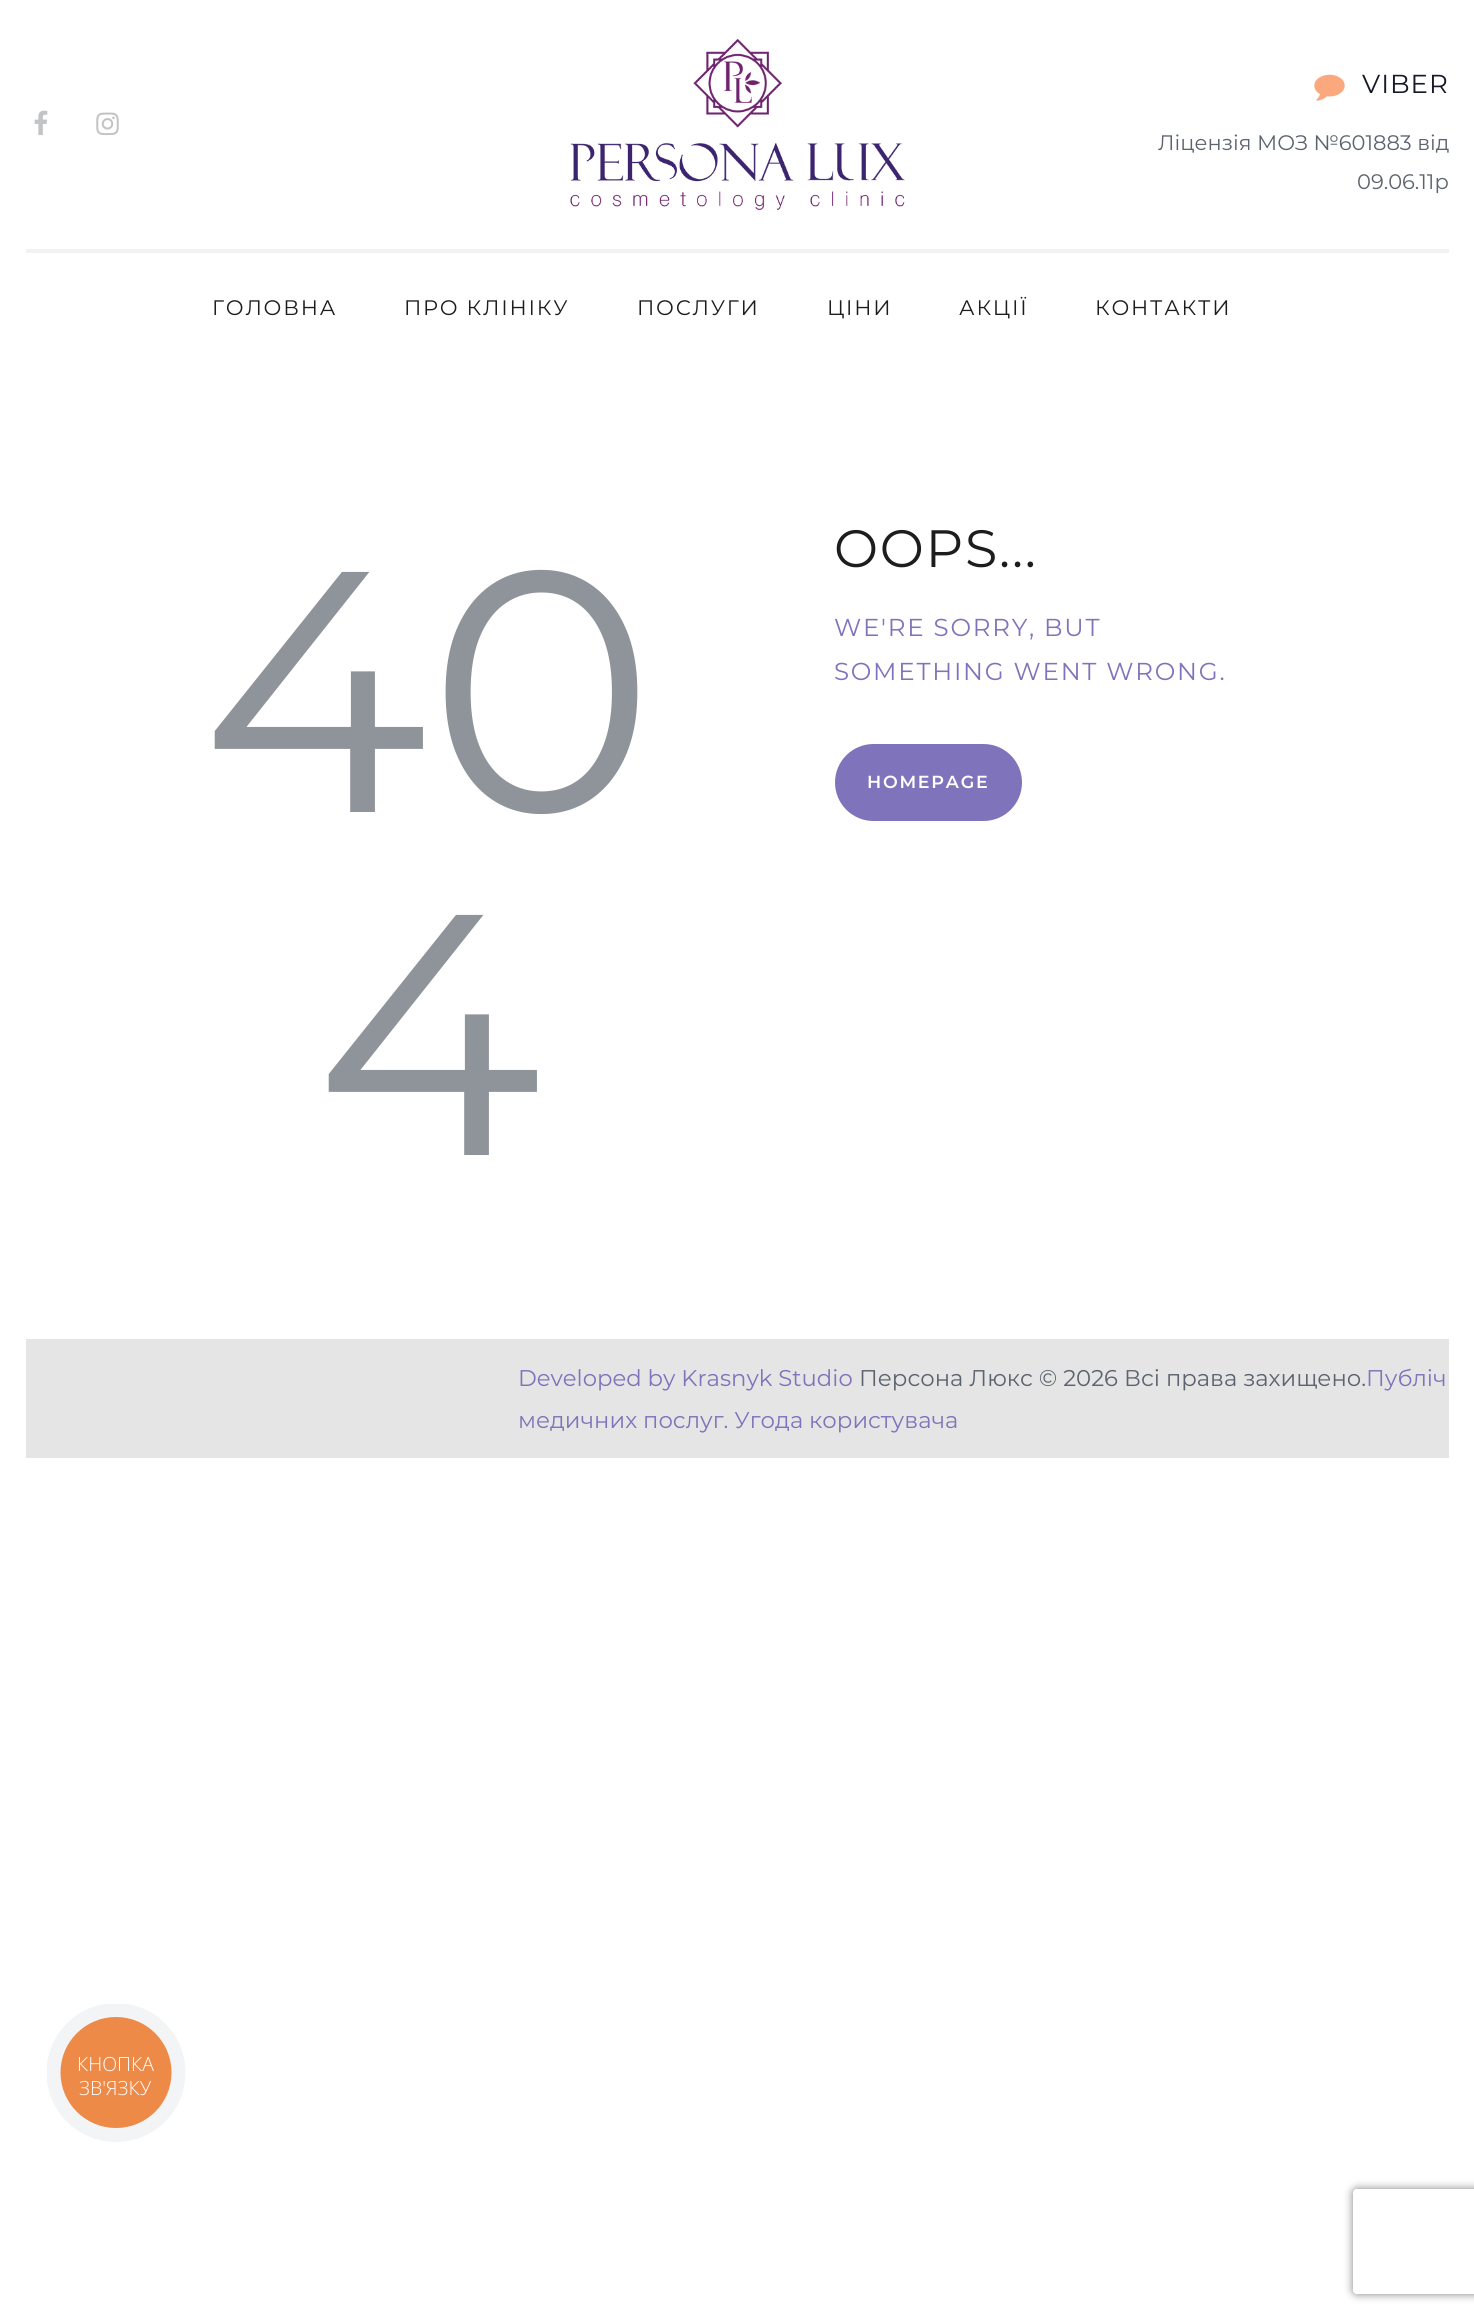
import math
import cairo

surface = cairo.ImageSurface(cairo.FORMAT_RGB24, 1474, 2318)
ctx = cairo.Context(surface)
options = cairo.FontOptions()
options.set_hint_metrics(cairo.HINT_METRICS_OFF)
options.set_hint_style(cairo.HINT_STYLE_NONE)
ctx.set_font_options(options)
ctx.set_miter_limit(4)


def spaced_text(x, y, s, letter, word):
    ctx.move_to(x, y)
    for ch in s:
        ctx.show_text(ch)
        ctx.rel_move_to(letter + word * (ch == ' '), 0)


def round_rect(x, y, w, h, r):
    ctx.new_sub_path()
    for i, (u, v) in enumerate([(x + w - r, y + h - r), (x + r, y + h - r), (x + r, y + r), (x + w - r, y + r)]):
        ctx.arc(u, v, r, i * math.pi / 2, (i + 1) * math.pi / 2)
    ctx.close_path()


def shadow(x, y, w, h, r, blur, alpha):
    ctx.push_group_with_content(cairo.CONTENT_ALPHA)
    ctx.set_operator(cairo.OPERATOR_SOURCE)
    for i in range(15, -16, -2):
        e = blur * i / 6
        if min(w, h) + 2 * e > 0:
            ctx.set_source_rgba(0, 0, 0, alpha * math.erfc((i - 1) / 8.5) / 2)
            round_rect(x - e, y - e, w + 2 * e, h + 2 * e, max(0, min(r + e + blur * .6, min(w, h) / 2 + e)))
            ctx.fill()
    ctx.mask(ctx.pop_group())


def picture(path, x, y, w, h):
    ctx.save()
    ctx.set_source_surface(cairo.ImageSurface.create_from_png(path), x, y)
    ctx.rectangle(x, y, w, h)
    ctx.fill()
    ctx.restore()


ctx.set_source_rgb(1, 1, 1)
ctx.paint()
picture("img1.png", 34, 110, 14, 26)
picture("img2.png", 96, 112, 23, 24)
picture("img3.png", 570, 38, 335, 172)
picture("img4.png", 1314, 74, 31, 27)
ctx.select_font_face("Montserrat")
ctx.set_font_size(26)
ctx.set_source_rgb(0.09, 0.098, 0.157)
spaced_text(1362, 93, "VIBER", 1, 0)
ctx.set_font_size(21)
ctx.set_source_rgb(0.361, 0.388, 0.431)
ctx.move_to(1158, 150)
ctx.show_text("Ліцензія МОЗ №601883 від")
ctx.move_to(1357, 189)
ctx.show_text("09.06.11р")
ctx.set_source_rgb(0.949, 0.949, 0.949)
ctx.rectangle(26, 249, 1423, 4)
ctx.fill()
ctx.set_source_rgb(0.114, 0.114, 0.114)
spaced_text(212, 315, "ГОЛОВНА", 1.75, 0)
spaced_text(404, 315, "ПРО КЛІНІКУ", 1.75, 0)
spaced_text(637, 315, "ПОСЛУГИ", 1.75, 0)
spaced_text(827, 315, "ЦIНИ", 1.75, 0)
spaced_text(959, 315, "АКЦІЇ", 1.75, 0)
spaced_text(1095, 315, "КОНТАКТИ", 1.75, 0)
ctx.set_font_size(343)
ctx.set_source_rgb(0.561, 0.576, 0.604)
ctx.move_to(201, 812)
ctx.show_text("40")
ctx.move_to(315, 1155)
ctx.show_text("4")
ctx.set_font_size(52.5)
ctx.set_source_rgb(0.114, 0.114, 0.114)
spaced_text(834, 567, "OOPS...", 1.75, 0)
ctx.set_font_size(24.5)
ctx.set_source_rgb(0.498, 0.451, 0.733)
spaced_text(834, 636, "WE'RE SORRY, BUT", 1.75, 0)
spaced_text(834, 680, "SOMETHING WENT WRONG.", 1.75, 0)
round_rect(835, 744, 187, 77, 38.5)
ctx.fill()
ctx.select_font_face("Montserrat SemiBold")
ctx.set_font_size(17.5)
ctx.set_source_rgb(1, 1, 1)
spaced_text(867, 788, "HOMEPAGE", 1.75, 0)
ctx.set_source_rgb(0.898, 0.898, 0.898)
ctx.rectangle(26, 1339, 1423, 119)
ctx.fill()
ctx.select_font_face("Montserrat")
ctx.set_font_size(22.75)
ctx.set_source_rgb(0.498, 0.451, 0.733)
ctx.move_to(518, 1386)
ctx.show_text("Developed by Krasnyk Studio")
ctx.set_source_rgb(0.361, 0.388, 0.431)
ctx.move_to(859, 1386)
ctx.show_text("Персона Люкс © 2026 Всі права захищено.")
ctx.set_source_rgb(0.498, 0.451, 0.733)
ctx.move_to(1366, 1386)
ctx.show_text("Публіч")
ctx.move_to(518, 1428)
ctx.show_text("медичних послуг. Угода користувача")
ctx.save()
ctx.rectangle(47, 2004, 139, 138)
ctx.clip()
ctx.set_source_rgb(0.949, 0.957, 0.961)
ctx.arc(116, 2072.5, 69.5, 0, 2 * math.pi)
ctx.fill()
ctx.restore()
ctx.set_source_rgb(0.929, 0.541, 0.278)
ctx.arc(116, 2072.5, 55.5, 0, 2 * math.pi)
ctx.fill()
ctx.select_font_face("Open Sans Light")
ctx.set_font_size(19.5)
ctx.set_source_rgb(1, 1, 1)
ctx.move_to(77, 2071)
ctx.show_text("КНОПКА")
ctx.move_to(79, 2095)
ctx.show_text("ЗВ'ЯЗКУ")
ctx.save()
ctx.set_fill_rule(cairo.FILL_RULE_EVEN_ODD)
ctx.new_path()
ctx.move_to(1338, 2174)
ctx.line_to(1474, 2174)
ctx.line_to(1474, 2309)
ctx.line_to(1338, 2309)
ctx.close_path()
ctx.move_to(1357, 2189)
ctx.line_to(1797, 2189)
ctx.curve_to(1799, 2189, 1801, 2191, 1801, 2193)
ctx.line_to(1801, 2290)
ctx.curve_to(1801, 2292, 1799, 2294, 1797, 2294)
ctx.line_to(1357, 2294)
ctx.curve_to(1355, 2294, 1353, 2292, 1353, 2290)
ctx.line_to(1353, 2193)
ctx.curve_to(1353, 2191, 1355, 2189, 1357, 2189)
ctx.close_path()
ctx.clip()
ctx.set_source_rgb(0.502, 0.502, 0.502)
shadow(1353, 2189, 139, 105, 4, 4.5, 1)
ctx.restore()
surface.write_to_png("page.png")
